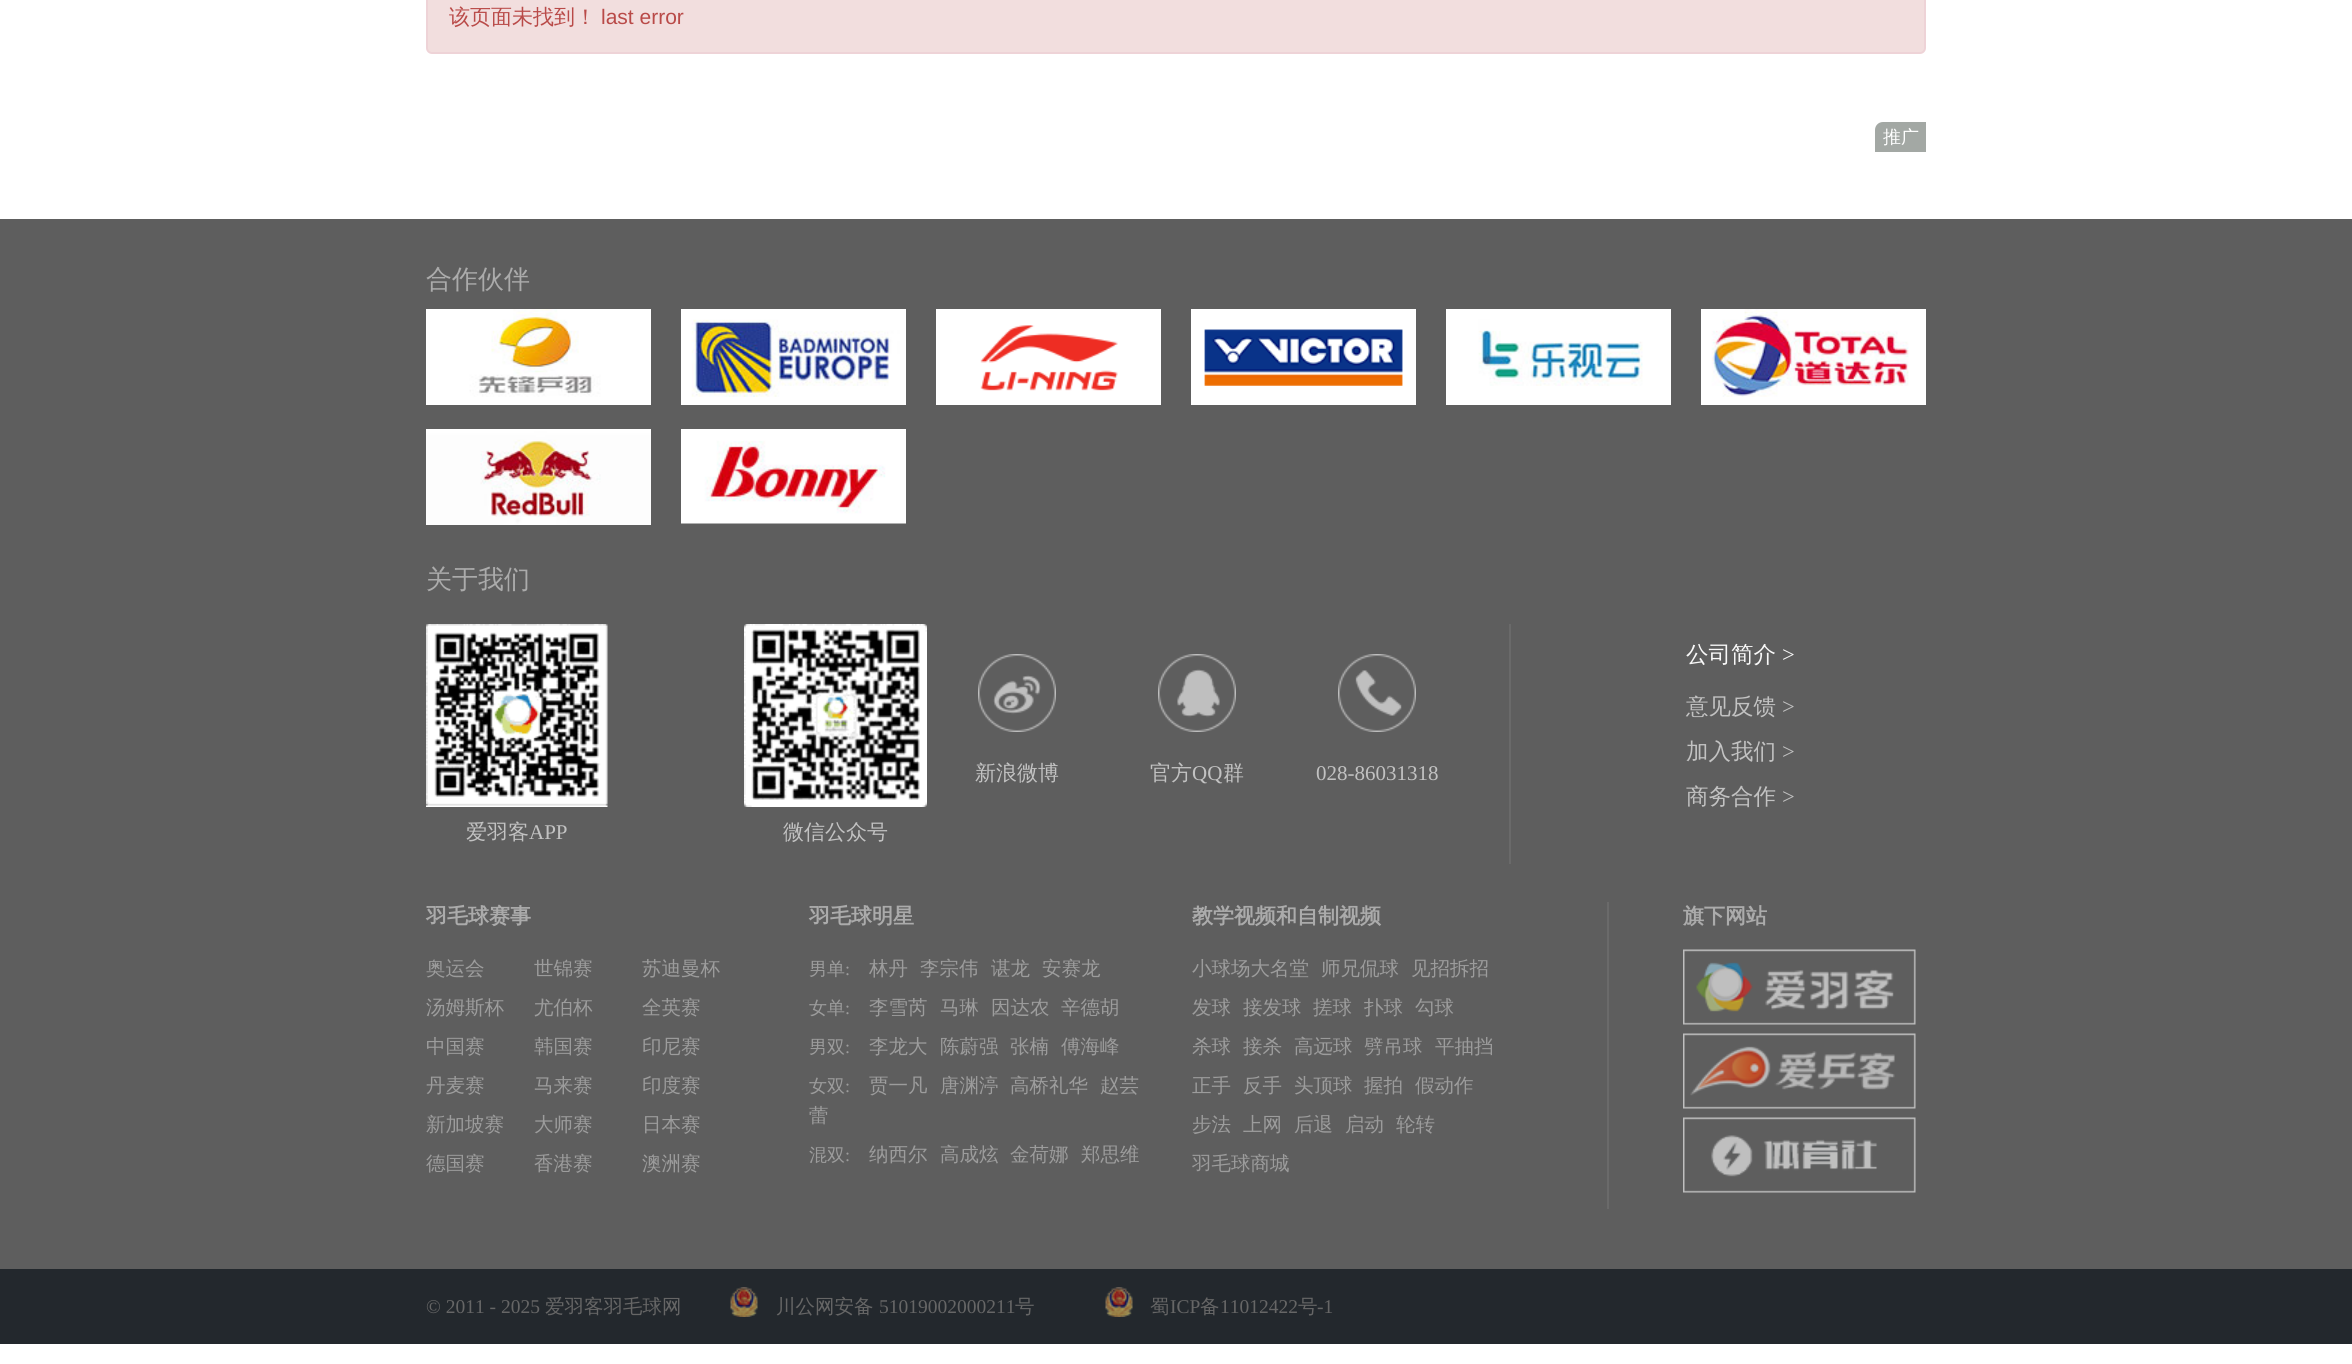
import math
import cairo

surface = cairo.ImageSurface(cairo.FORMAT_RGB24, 2352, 1364)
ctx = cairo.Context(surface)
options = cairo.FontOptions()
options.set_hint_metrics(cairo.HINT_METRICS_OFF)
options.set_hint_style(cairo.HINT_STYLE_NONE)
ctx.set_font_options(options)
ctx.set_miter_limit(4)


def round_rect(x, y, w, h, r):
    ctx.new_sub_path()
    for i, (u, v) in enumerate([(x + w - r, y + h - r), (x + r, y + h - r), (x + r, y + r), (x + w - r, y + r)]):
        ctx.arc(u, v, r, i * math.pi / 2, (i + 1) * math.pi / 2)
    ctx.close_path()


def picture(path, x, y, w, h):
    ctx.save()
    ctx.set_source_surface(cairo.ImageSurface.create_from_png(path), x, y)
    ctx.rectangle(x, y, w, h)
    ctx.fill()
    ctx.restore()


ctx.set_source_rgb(1, 1, 1)
ctx.paint()
ctx.set_source_rgb(0.949, 0.871, 0.871)
round_rect(427, -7, 1498, 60, 5)
ctx.fill_preserve()
ctx.set_source_rgb(0.933, 0.827, 0.843)
ctx.stroke()
ctx.select_font_face("WenQuanYi Zen Hei Medium")
ctx.set_font_size(21)
ctx.set_source_rgb(0.725, 0.29, 0.282)
ctx.move_to(449, 24)
ctx.show_text("该页面未找到！")
ctx.select_font_face("Liberation Sans")
ctx.move_to(601, 24)
ctx.show_text("last error")
ctx.set_source_rgb(0.639, 0.659, 0.643)
ctx.new_path()
ctx.move_to(1883, 122)
ctx.line_to(1926, 122)
ctx.line_to(1926, 152)
ctx.line_to(1875, 152)
ctx.line_to(1875, 130)
ctx.curve_to(1875, 125.5, 1878.5, 122, 1883, 122)
ctx.close_path()
ctx.fill()
ctx.select_font_face("WenQuanYi Zen Hei Medium")
ctx.set_font_size(18)
ctx.set_source_rgb(1, 1, 1)
ctx.move_to(1883, 143)
ctx.show_text("推广")
ctx.set_source_rgb(0.369, 0.369, 0.369)
ctx.rectangle(0, 219, 2352, 1050)
ctx.fill()
ctx.set_font_size(26)
ctx.set_source_rgb(0.671, 0.671, 0.671)
ctx.move_to(426, 288)
ctx.show_text("合作伙伴")
picture("img1.png", 426, 309, 225, 96)
picture("img2.png", 681, 309, 225, 96)
picture("img3.png", 936, 309, 225, 96)
picture("img4.png", 1191, 309, 225, 96)
picture("img5.png", 1446, 309, 225, 96)
picture("img6.png", 1701, 309, 225, 96)
picture("img7.png", 426, 429, 225, 96)
picture("img8.png", 681, 429, 225, 95)
ctx.move_to(426, 588)
ctx.show_text("关于我们")
ctx.set_source_rgb(0.416, 0.416, 0.416)
ctx.rectangle(1509, 624, 2, 240)
ctx.fill()
picture("img9.png", 978, 654, 78, 78)
ctx.set_font_size(21)
ctx.set_source_rgb(0.761, 0.761, 0.761)
ctx.move_to(975, 780)
ctx.show_text("新浪微博")
picture("img10.png", 1158, 654, 78, 78)
ctx.move_to(1150, 780)
ctx.show_text("官方")
ctx.select_font_face("Liberation Serif")
ctx.move_to(1192, 780)
ctx.show_text("QQ")
ctx.select_font_face("WenQuanYi Zen Hei Medium")
ctx.move_to(1223, 780)
ctx.show_text("群")
picture("img11.png", 1338, 654, 78, 78)
ctx.select_font_face("Liberation Serif")
ctx.move_to(1316, 780)
ctx.show_text("028-86031318")
ctx.select_font_face("WenQuanYi Zen Hei Medium")
ctx.set_font_size(22.5)
ctx.set_source_rgb(0.973, 0.973, 0.973)
ctx.move_to(1686, 662)
ctx.show_text("公司简介")
ctx.select_font_face("Liberation Serif")
ctx.move_to(1782, 662)
ctx.show_text(">")
ctx.select_font_face("WenQuanYi Zen Hei Medium")
ctx.set_source_rgb(0.761, 0.761, 0.761)
ctx.move_to(1686, 714)
ctx.show_text("意见反馈")
ctx.select_font_face("Liberation Serif")
ctx.move_to(1782, 714)
ctx.show_text(">")
ctx.select_font_face("WenQuanYi Zen Hei Medium")
ctx.move_to(1686, 759)
ctx.show_text("加入我们")
ctx.select_font_face("Liberation Serif")
ctx.move_to(1782, 759)
ctx.show_text(">")
ctx.select_font_face("WenQuanYi Zen Hei Medium")
ctx.move_to(1686, 804)
ctx.show_text("商务合作")
ctx.select_font_face("Liberation Serif")
ctx.move_to(1782, 804)
ctx.show_text(">")
picture("img12.png", 426, 624, 182, 183)
ctx.select_font_face("WenQuanYi Zen Hei Medium")
ctx.set_font_size(21)
ctx.move_to(466, 839)
ctx.show_text("爱羽客")
ctx.select_font_face("Liberation Serif")
ctx.move_to(529, 839)
ctx.show_text("APP")
picture("img13.png", 744, 624, 183, 183)
ctx.select_font_face("WenQuanYi Zen Hei Medium")
ctx.move_to(783, 839)
ctx.show_text("微信公众号")
ctx.select_font_face("WenQuanYi Zen Hei", cairo.FONT_SLANT_NORMAL, cairo.FONT_WEIGHT_BOLD)
ctx.set_source_rgb(0.671, 0.671, 0.671)
ctx.move_to(426, 923)
ctx.show_text("羽毛球赛事")
ctx.select_font_face("WenQuanYi Zen Hei Medium")
ctx.set_font_size(19.5)
ctx.set_source_rgb(0.612, 0.612, 0.612)
ctx.move_to(426, 975)
ctx.show_text("奥运会")
ctx.move_to(534, 975)
ctx.show_text("世锦赛")
ctx.move_to(642, 975)
ctx.show_text("苏迪曼杯")
ctx.move_to(426, 1014)
ctx.show_text("汤姆斯杯")
ctx.move_to(534, 1014)
ctx.show_text("尤伯杯")
ctx.move_to(642, 1014)
ctx.show_text("全英赛")
ctx.move_to(426, 1053)
ctx.show_text("中国赛")
ctx.move_to(534, 1053)
ctx.show_text("韩国赛")
ctx.move_to(642, 1053)
ctx.show_text("印尼赛")
ctx.move_to(426, 1092)
ctx.show_text("丹麦赛")
ctx.move_to(534, 1092)
ctx.show_text("马来赛")
ctx.move_to(642, 1092)
ctx.show_text("印度赛")
ctx.move_to(426, 1131)
ctx.show_text("新加坡赛")
ctx.move_to(534, 1131)
ctx.show_text("大师赛")
ctx.move_to(642, 1131)
ctx.show_text("日本赛")
ctx.move_to(426, 1170)
ctx.show_text("德国赛")
ctx.move_to(534, 1170)
ctx.show_text("香港赛")
ctx.move_to(642, 1170)
ctx.show_text("澳洲赛")
ctx.select_font_face("WenQuanYi Zen Hei", cairo.FONT_SLANT_NORMAL, cairo.FONT_WEIGHT_BOLD)
ctx.set_font_size(21)
ctx.set_source_rgb(0.671, 0.671, 0.671)
ctx.move_to(809, 923)
ctx.show_text("羽毛球明星")
ctx.select_font_face("WenQuanYi Zen Hei Medium")
ctx.set_font_size(18)
ctx.set_source_rgb(0.612, 0.612, 0.612)
ctx.move_to(809, 975)
ctx.show_text("男单")
ctx.select_font_face("Liberation Serif")
ctx.move_to(845, 975)
ctx.show_text(":")
ctx.select_font_face("WenQuanYi Zen Hei Medium")
ctx.set_font_size(19.5)
ctx.move_to(869, 975)
ctx.show_text("林丹")
ctx.move_to(920, 975)
ctx.show_text("李宗伟")
ctx.move_to(991, 975)
ctx.show_text("谌龙")
ctx.move_to(1042, 975)
ctx.show_text("安赛龙")
ctx.set_font_size(18)
ctx.move_to(809, 1014)
ctx.show_text("女单")
ctx.select_font_face("Liberation Serif")
ctx.move_to(845, 1014)
ctx.show_text(":")
ctx.select_font_face("WenQuanYi Zen Hei Medium")
ctx.set_font_size(19.5)
ctx.move_to(869, 1014)
ctx.show_text("李雪芮")
ctx.move_to(940, 1014)
ctx.show_text("马琳")
ctx.move_to(991, 1014)
ctx.show_text("因达农")
ctx.move_to(1061, 1014)
ctx.show_text("辛德胡")
ctx.set_font_size(18)
ctx.move_to(809, 1053)
ctx.show_text("男双")
ctx.select_font_face("Liberation Serif")
ctx.move_to(845, 1053)
ctx.show_text(":")
ctx.select_font_face("WenQuanYi Zen Hei Medium")
ctx.set_font_size(19.5)
ctx.move_to(869, 1053)
ctx.show_text("李龙大")
ctx.move_to(940, 1053)
ctx.show_text("陈蔚强")
ctx.move_to(1010, 1053)
ctx.show_text("张楠")
ctx.move_to(1061, 1053)
ctx.show_text("傅海峰")
ctx.set_font_size(18)
ctx.move_to(809, 1092)
ctx.show_text("女双")
ctx.select_font_face("Liberation Serif")
ctx.move_to(845, 1092)
ctx.show_text(":")
ctx.select_font_face("WenQuanYi Zen Hei Medium")
ctx.set_font_size(19.5)
ctx.move_to(869, 1092)
ctx.show_text("贾一凡")
ctx.move_to(940, 1092)
ctx.show_text("唐渊渟")
ctx.move_to(1010, 1092)
ctx.show_text("高桥礼华")
ctx.move_to(1100, 1092)
ctx.show_text("赵芸")
ctx.move_to(809, 1122)
ctx.show_text("蕾")
ctx.set_font_size(18)
ctx.move_to(809, 1161)
ctx.show_text("混双")
ctx.select_font_face("Liberation Serif")
ctx.move_to(845, 1161)
ctx.show_text(":")
ctx.select_font_face("WenQuanYi Zen Hei Medium")
ctx.set_font_size(19.5)
ctx.move_to(869, 1161)
ctx.show_text("纳西尔")
ctx.move_to(940, 1161)
ctx.show_text("高成炫")
ctx.move_to(1010, 1161)
ctx.show_text("金荷娜")
ctx.move_to(1081, 1161)
ctx.show_text("郑思维")
ctx.select_font_face("WenQuanYi Zen Hei", cairo.FONT_SLANT_NORMAL, cairo.FONT_WEIGHT_BOLD)
ctx.set_font_size(21)
ctx.set_source_rgb(0.671, 0.671, 0.671)
ctx.move_to(1192, 923)
ctx.show_text("教学视频和自制视频")
ctx.select_font_face("WenQuanYi Zen Hei Medium")
ctx.set_font_size(19.5)
ctx.set_source_rgb(0.612, 0.612, 0.612)
ctx.move_to(1192, 975)
ctx.show_text("小球场大名堂")
ctx.move_to(1321, 975)
ctx.show_text("师兄侃球")
ctx.move_to(1411, 975)
ctx.show_text("见招拆招")
ctx.move_to(1192, 1014)
ctx.show_text("发球")
ctx.move_to(1243, 1014)
ctx.show_text("接发球")
ctx.move_to(1313, 1014)
ctx.show_text("搓球")
ctx.move_to(1364, 1014)
ctx.show_text("扑球")
ctx.move_to(1415, 1014)
ctx.show_text("勾球")
ctx.move_to(1192, 1053)
ctx.show_text("杀球")
ctx.move_to(1243, 1053)
ctx.show_text("接杀")
ctx.move_to(1294, 1053)
ctx.show_text("高远球")
ctx.move_to(1364, 1053)
ctx.show_text("劈吊球")
ctx.move_to(1435, 1053)
ctx.show_text("平抽挡")
ctx.move_to(1192, 1092)
ctx.show_text("正手")
ctx.move_to(1243, 1092)
ctx.show_text("反手")
ctx.move_to(1294, 1092)
ctx.show_text("头顶球")
ctx.move_to(1364, 1092)
ctx.show_text("握拍")
ctx.move_to(1415, 1092)
ctx.show_text("假动作")
ctx.move_to(1192, 1131)
ctx.show_text("步法")
ctx.move_to(1243, 1131)
ctx.show_text("上网")
ctx.move_to(1294, 1131)
ctx.show_text("后退")
ctx.move_to(1345, 1131)
ctx.show_text("启动")
ctx.move_to(1396, 1131)
ctx.show_text("轮转")
ctx.move_to(1192, 1170)
ctx.show_text("羽毛球商城")
ctx.set_source_rgb(0.416, 0.416, 0.416)
ctx.rectangle(1607, 902, 2, 307)
ctx.fill()
ctx.select_font_face("WenQuanYi Zen Hei", cairo.FONT_SLANT_NORMAL, cairo.FONT_WEIGHT_BOLD)
ctx.set_font_size(21)
ctx.set_source_rgb(0.671, 0.671, 0.671)
ctx.move_to(1683, 923)
ctx.show_text("旗下网站")
picture("img14.png", 1683, 949, 233, 76)
picture("img15.png", 1683, 1033, 233, 76)
picture("img16.png", 1683, 1117, 233, 76)
ctx.set_source_rgb(0.137, 0.157, 0.176)
ctx.rectangle(0, 1269, 2352, 75)
ctx.fill()
ctx.select_font_face("Liberation Serif")
ctx.set_font_size(19.5)
ctx.set_source_rgb(0.4, 0.4, 0.4)
ctx.move_to(426, 1313)
ctx.show_text("© 2011 - 2025")
ctx.select_font_face("WenQuanYi Zen Hei Medium")
ctx.move_to(545, 1313)
ctx.show_text("爱羽客羽毛球网")
picture("img17.png", 730, 1287, 28, 30)
ctx.move_to(776, 1313)
ctx.show_text("川公网安备")
ctx.select_font_face("Liberation Serif")
ctx.move_to(879, 1313)
ctx.show_text("51019002000211")
ctx.select_font_face("WenQuanYi Zen Hei Medium")
ctx.move_to(1015, 1313)
ctx.show_text("号")
picture("img18.png", 1105, 1287, 28, 30)
ctx.move_to(1150, 1313)
ctx.show_text("蜀")
ctx.select_font_face("Liberation Serif")
ctx.move_to(1170, 1313)
ctx.show_text("ICP")
ctx.select_font_face("WenQuanYi Zen Hei Medium")
ctx.move_to(1200, 1313)
ctx.show_text("备")
ctx.select_font_face("Liberation Serif")
ctx.move_to(1220, 1313)
ctx.show_text("11012422")
ctx.select_font_face("WenQuanYi Zen Hei Medium")
ctx.move_to(1298, 1313)
ctx.show_text("号")
ctx.select_font_face("Liberation Serif")
ctx.move_to(1317, 1313)
ctx.show_text("-1")
surface.write_to_png("page.png")
